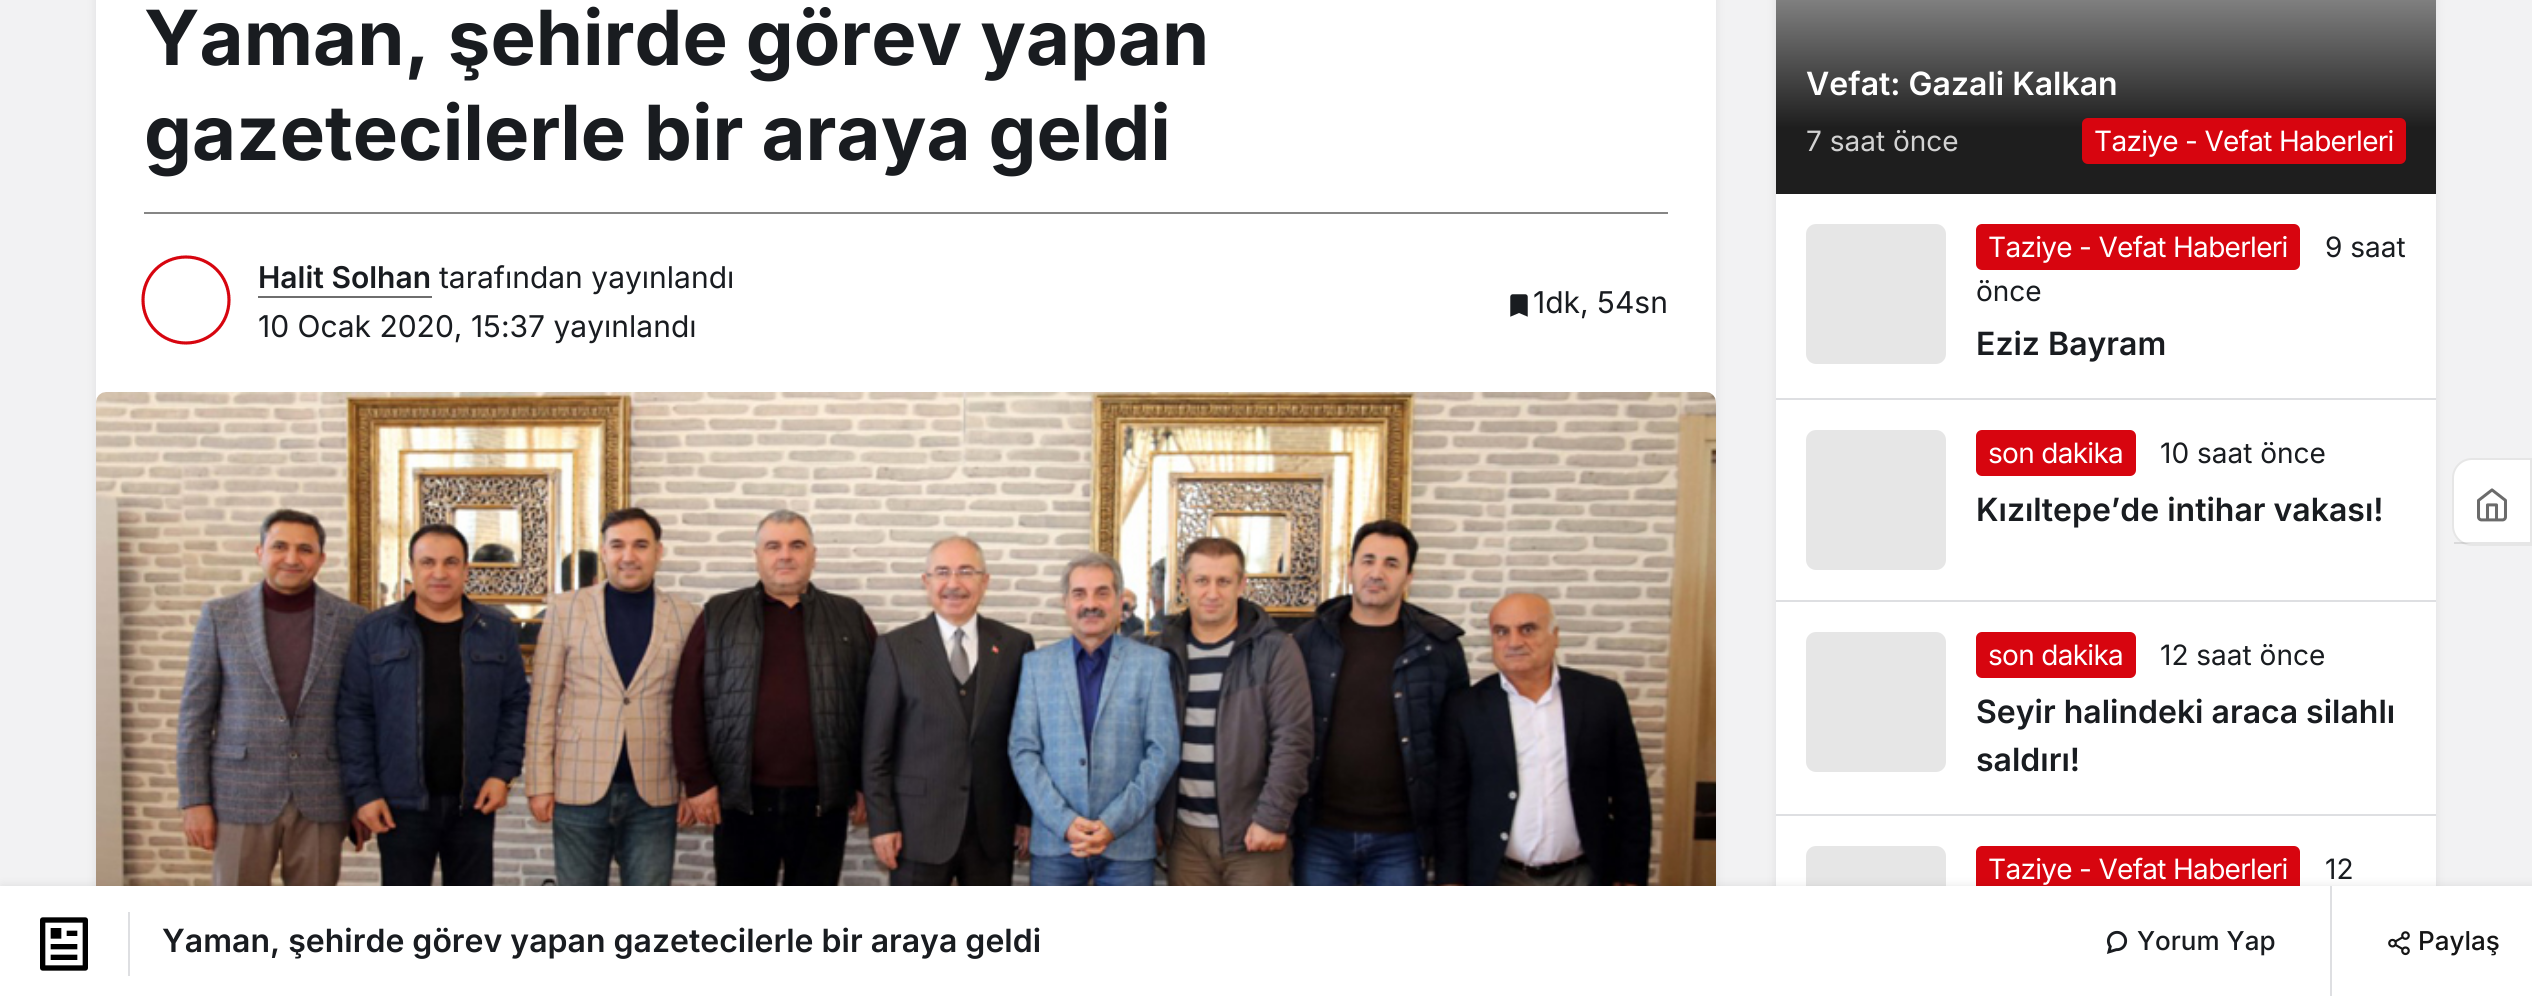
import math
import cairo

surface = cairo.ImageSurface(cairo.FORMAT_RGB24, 2532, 1002)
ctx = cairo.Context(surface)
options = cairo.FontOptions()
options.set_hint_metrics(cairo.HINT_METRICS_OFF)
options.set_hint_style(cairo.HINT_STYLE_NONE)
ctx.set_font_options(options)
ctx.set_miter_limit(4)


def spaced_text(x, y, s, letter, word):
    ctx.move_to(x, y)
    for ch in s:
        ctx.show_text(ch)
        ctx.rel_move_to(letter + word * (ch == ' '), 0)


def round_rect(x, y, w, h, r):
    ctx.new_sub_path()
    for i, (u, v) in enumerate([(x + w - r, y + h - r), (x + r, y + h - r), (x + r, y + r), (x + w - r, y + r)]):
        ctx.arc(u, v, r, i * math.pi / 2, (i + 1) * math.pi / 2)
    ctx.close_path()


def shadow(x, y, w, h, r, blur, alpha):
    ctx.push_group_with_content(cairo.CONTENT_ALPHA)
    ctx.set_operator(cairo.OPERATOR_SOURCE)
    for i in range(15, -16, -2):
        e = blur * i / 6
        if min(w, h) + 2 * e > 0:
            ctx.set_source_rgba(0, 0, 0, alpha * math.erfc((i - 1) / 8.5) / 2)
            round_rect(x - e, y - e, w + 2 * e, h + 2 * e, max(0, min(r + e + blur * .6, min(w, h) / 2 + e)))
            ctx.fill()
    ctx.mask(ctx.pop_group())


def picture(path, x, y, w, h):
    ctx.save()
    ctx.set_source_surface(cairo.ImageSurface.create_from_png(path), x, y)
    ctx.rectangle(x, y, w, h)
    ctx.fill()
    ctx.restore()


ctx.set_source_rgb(0.949, 0.949, 0.953)
ctx.paint()
ctx.set_source_rgb(0.196, 0.208, 0.239)
shadow(96, -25, 1620, 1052, 10, 5, 0.1)
ctx.set_source_rgb(1, 1, 1)
ctx.rectangle(96, 0, 1620, 402)
ctx.fill()
ctx.select_font_face("Inter", cairo.FONT_SLANT_NORMAL, cairo.FONT_WEIGHT_BOLD)
ctx.set_font_size(76)
ctx.set_source_rgb(0.098, 0.11, 0.125)
ctx.move_to(144, 65)
ctx.show_text("Yaman, şehirde görev yapan")
ctx.move_to(144, 160)
ctx.show_text("gazetecilerle bir araya geldi")
ctx.set_source_rgb(0.525, 0.525, 0.522)
ctx.rectangle(144, 212, 1524, 2)
ctx.fill()
ctx.new_path()
ctx.move_to(186, 257)
ctx.curve_to(210, 257, 229, 276, 229, 300)
ctx.curve_to(229, 324, 210, 343, 186, 343)
ctx.curve_to(162, 343, 143, 324, 143, 300)
ctx.curve_to(143, 276, 162, 257, 186, 257)
ctx.close_path()
ctx.set_source_rgb(0.843, 0.02, 0.059)
ctx.set_line_width(3.2)
ctx.set_line_cap(cairo.LINE_CAP_ROUND)
ctx.set_dash([1.08, 1.08])
ctx.stroke()
ctx.select_font_face("Inter SemiBold")
ctx.set_font_size(30)
ctx.set_source_rgb(0.098, 0.11, 0.125)
ctx.move_to(258, 288)
ctx.show_text("Halit Solhan")
ctx.set_source_rgb(0.431, 0.431, 0.431)
ctx.rectangle(258, 296, 174, 2)
ctx.fill()
ctx.select_font_face("Inter")
ctx.set_source_rgb(0.098, 0.11, 0.125)
ctx.move_to(439, 288)
ctx.show_text("tarafından yayınlandı")
ctx.move_to(258, 337)
ctx.show_text("10 Ocak 2020, 15:37 yayınlandı")
picture("img1.png", 1510, 294, 18, 23)
ctx.move_to(1533, 313)
ctx.show_text("1dk, 54sn")
picture("img2.png", 96, 392, 1620, 494)
ctx.set_source_rgb(0.196, 0.208, 0.239)
shadow(1776, -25, 660, 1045, 10, 5, 0.1)
ctx.set_source_rgb(1, 1, 1)
ctx.rectangle(1776, 194, 660, 692)
ctx.fill()
ctx.set_source_rgb(0.902, 0.902, 0.902)
round_rect(1806, 846, 140, 140, 10)
ctx.fill()
ctx.set_source_rgb(0.843, 0.02, 0.059)
round_rect(1976, 846, 324, 46, 6)
ctx.fill()
ctx.set_source_rgb(0, 0, 0)
shadow(2, 886, 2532, 116, 0, 5, 0.1)
ctx.set_source_rgb(1, 1, 1)
ctx.rectangle(0, 886, 2532, 116)
ctx.fill()
picture("img3.png", 40, 917, 48, 54)
ctx.set_source_rgb(0.871, 0.875, 0.886)
ctx.rectangle(128, 912, 2, 64)
ctx.fill()
ctx.select_font_face("Inter SemiBold")
ctx.set_font_size(32)
ctx.set_source_rgb(0.098, 0.11, 0.125)
ctx.move_to(162, 952)
ctx.show_text("Yaman, şehirde görev yapan gazetecilerle bir araya geldi")
picture("img4.png", 2106, 930, 22, 24)
ctx.select_font_face("Inter Medium")
ctx.set_font_size(26)
ctx.move_to(2137, 950)
ctx.show_text("Yorum Yap")
ctx.set_source_rgb(0.871, 0.875, 0.886)
ctx.rectangle(2330, 886, 2, 110)
ctx.fill()
picture("img5.png", 2388, 931, 22, 25)
ctx.set_source_rgb(0.086, 0.086, 0.086)
ctx.move_to(2418, 950)
ctx.show_text("Paylaş")
gradient = cairo.LinearGradient(2106, -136, 2106, 194)
gradient.add_color_stop_rgba(0, 0.902, 0.902, 0.902, 1)
gradient.add_color_stop_rgba(0.8, 0.118, 0.118, 0.118, 1)
ctx.set_source(gradient)
ctx.rectangle(1776, 0, 660, 194)
ctx.fill()
ctx.select_font_face("Inter SemiBold")
ctx.set_font_size(32)
ctx.set_source_rgb(1, 1, 1)
ctx.move_to(1806, 95)
ctx.show_text("Vefat: Gazali Kalkan")
ctx.select_font_face("Inter")
ctx.set_font_size(28)
ctx.set_source_rgb(0.824, 0.824, 0.824)
ctx.move_to(1806, 151)
ctx.show_text("7 saat önce")
ctx.set_source_rgb(0.843, 0.02, 0.059)
round_rect(2082, 118, 324, 46, 6)
ctx.fill()
ctx.set_source_rgb(1, 1, 1)
spaced_text(2094, 151, "Taziye - Vefat Haberleri", -0.7, 0)
ctx.set_source_rgb(0.871, 0.875, 0.886)
ctx.rectangle(1776, 398, 660, 2)
ctx.fill()
ctx.set_source_rgb(0.902, 0.902, 0.902)
round_rect(1806, 224, 140, 140, 10)
ctx.fill()
ctx.set_source_rgb(0.843, 0.02, 0.059)
round_rect(1976, 224, 324, 46, 6)
ctx.fill()
ctx.set_source_rgb(1, 1, 1)
spaced_text(1988, 257, "Taziye - Vefat Haberleri", -0.7, 0)
ctx.set_source_rgb(0.098, 0.11, 0.125)
ctx.move_to(2325, 257)
ctx.show_text("9 saat")
ctx.move_to(1976, 301)
ctx.show_text("önce")
ctx.select_font_face("Inter SemiBold")
ctx.set_font_size(32)
ctx.move_to(1976, 355)
ctx.show_text("Eziz Bayram")
ctx.set_source_rgb(0.871, 0.875, 0.886)
ctx.rectangle(1776, 600, 660, 2)
ctx.fill()
ctx.set_source_rgb(0.902, 0.902, 0.902)
round_rect(1806, 430, 140, 140, 10)
ctx.fill()
ctx.set_source_rgb(0.843, 0.02, 0.059)
round_rect(1976, 430, 160, 46, 6)
ctx.fill()
ctx.select_font_face("Inter")
ctx.set_font_size(28)
ctx.set_source_rgb(1, 1, 1)
spaced_text(1988, 463, "son dakika", -0.7, 0)
ctx.set_source_rgb(0.098, 0.11, 0.125)
ctx.move_to(2160, 463)
ctx.show_text("10 saat önce")
ctx.select_font_face("Inter SemiBold")
ctx.set_font_size(32)
ctx.move_to(1976, 521)
ctx.show_text("Kızıltepe’de intihar vakası!")
ctx.set_source_rgb(0.871, 0.875, 0.886)
ctx.rectangle(1776, 814, 660, 2)
ctx.fill()
ctx.set_source_rgb(0.902, 0.902, 0.902)
round_rect(1806, 632, 140, 140, 10)
ctx.fill()
ctx.set_source_rgb(0.843, 0.02, 0.059)
round_rect(1976, 632, 160, 46, 6)
ctx.fill()
ctx.select_font_face("Inter")
ctx.set_font_size(28)
ctx.set_source_rgb(1, 1, 1)
spaced_text(1988, 665, "son dakika", -0.7, 0)
ctx.set_source_rgb(0.098, 0.11, 0.125)
ctx.move_to(2160, 665)
ctx.show_text("12 saat önce")
ctx.select_font_face("Inter SemiBold")
ctx.set_font_size(32)
ctx.move_to(1976, 723)
ctx.show_text("Seyir halindeki araca silahlı")
ctx.move_to(1976, 771)
ctx.show_text("saldırı!")
ctx.select_font_face("Inter")
ctx.set_font_size(28)
ctx.set_source_rgb(1, 1, 1)
spaced_text(1988, 879, "Taziye - Vefat Haberleri", -0.7, 0)
ctx.set_source_rgb(0.098, 0.11, 0.125)
ctx.move_to(2325, 879)
ctx.show_text("12")
ctx.set_source_rgb(1, 1, 1)
ctx.new_path()
ctx.move_to(2472, 458)
ctx.line_to(2532, 458)
ctx.line_to(2532, 546)
ctx.line_to(2472, 546)
ctx.curve_to(2461, 546, 2452, 537, 2452, 526)
ctx.line_to(2452, 478)
ctx.curve_to(2452, 467, 2461, 458, 2472, 458)
ctx.close_path()
ctx.fill()
ctx.new_path()
ctx.move_to(2472, 459)
ctx.line_to(2531, 459)
ctx.line_to(2531, 545)
ctx.line_to(2472, 545)
ctx.curve_to(2461.5, 545, 2453, 536.5, 2453, 526)
ctx.line_to(2453, 478)
ctx.curve_to(2453, 467.5, 2461.5, 459, 2472, 459)
ctx.close_path()
ctx.set_source_rgba(0, 0, 0, 0.1)
ctx.set_line_width(2)
ctx.set_line_cap(cairo.LINE_CAP_BUTT)
ctx.set_dash([])
ctx.stroke()
ctx.rectangle(2454, 542, 76, 2)
ctx.fill()
picture("img6.png", 2477, 488, 30, 34)
surface.write_to_png("page.png")
